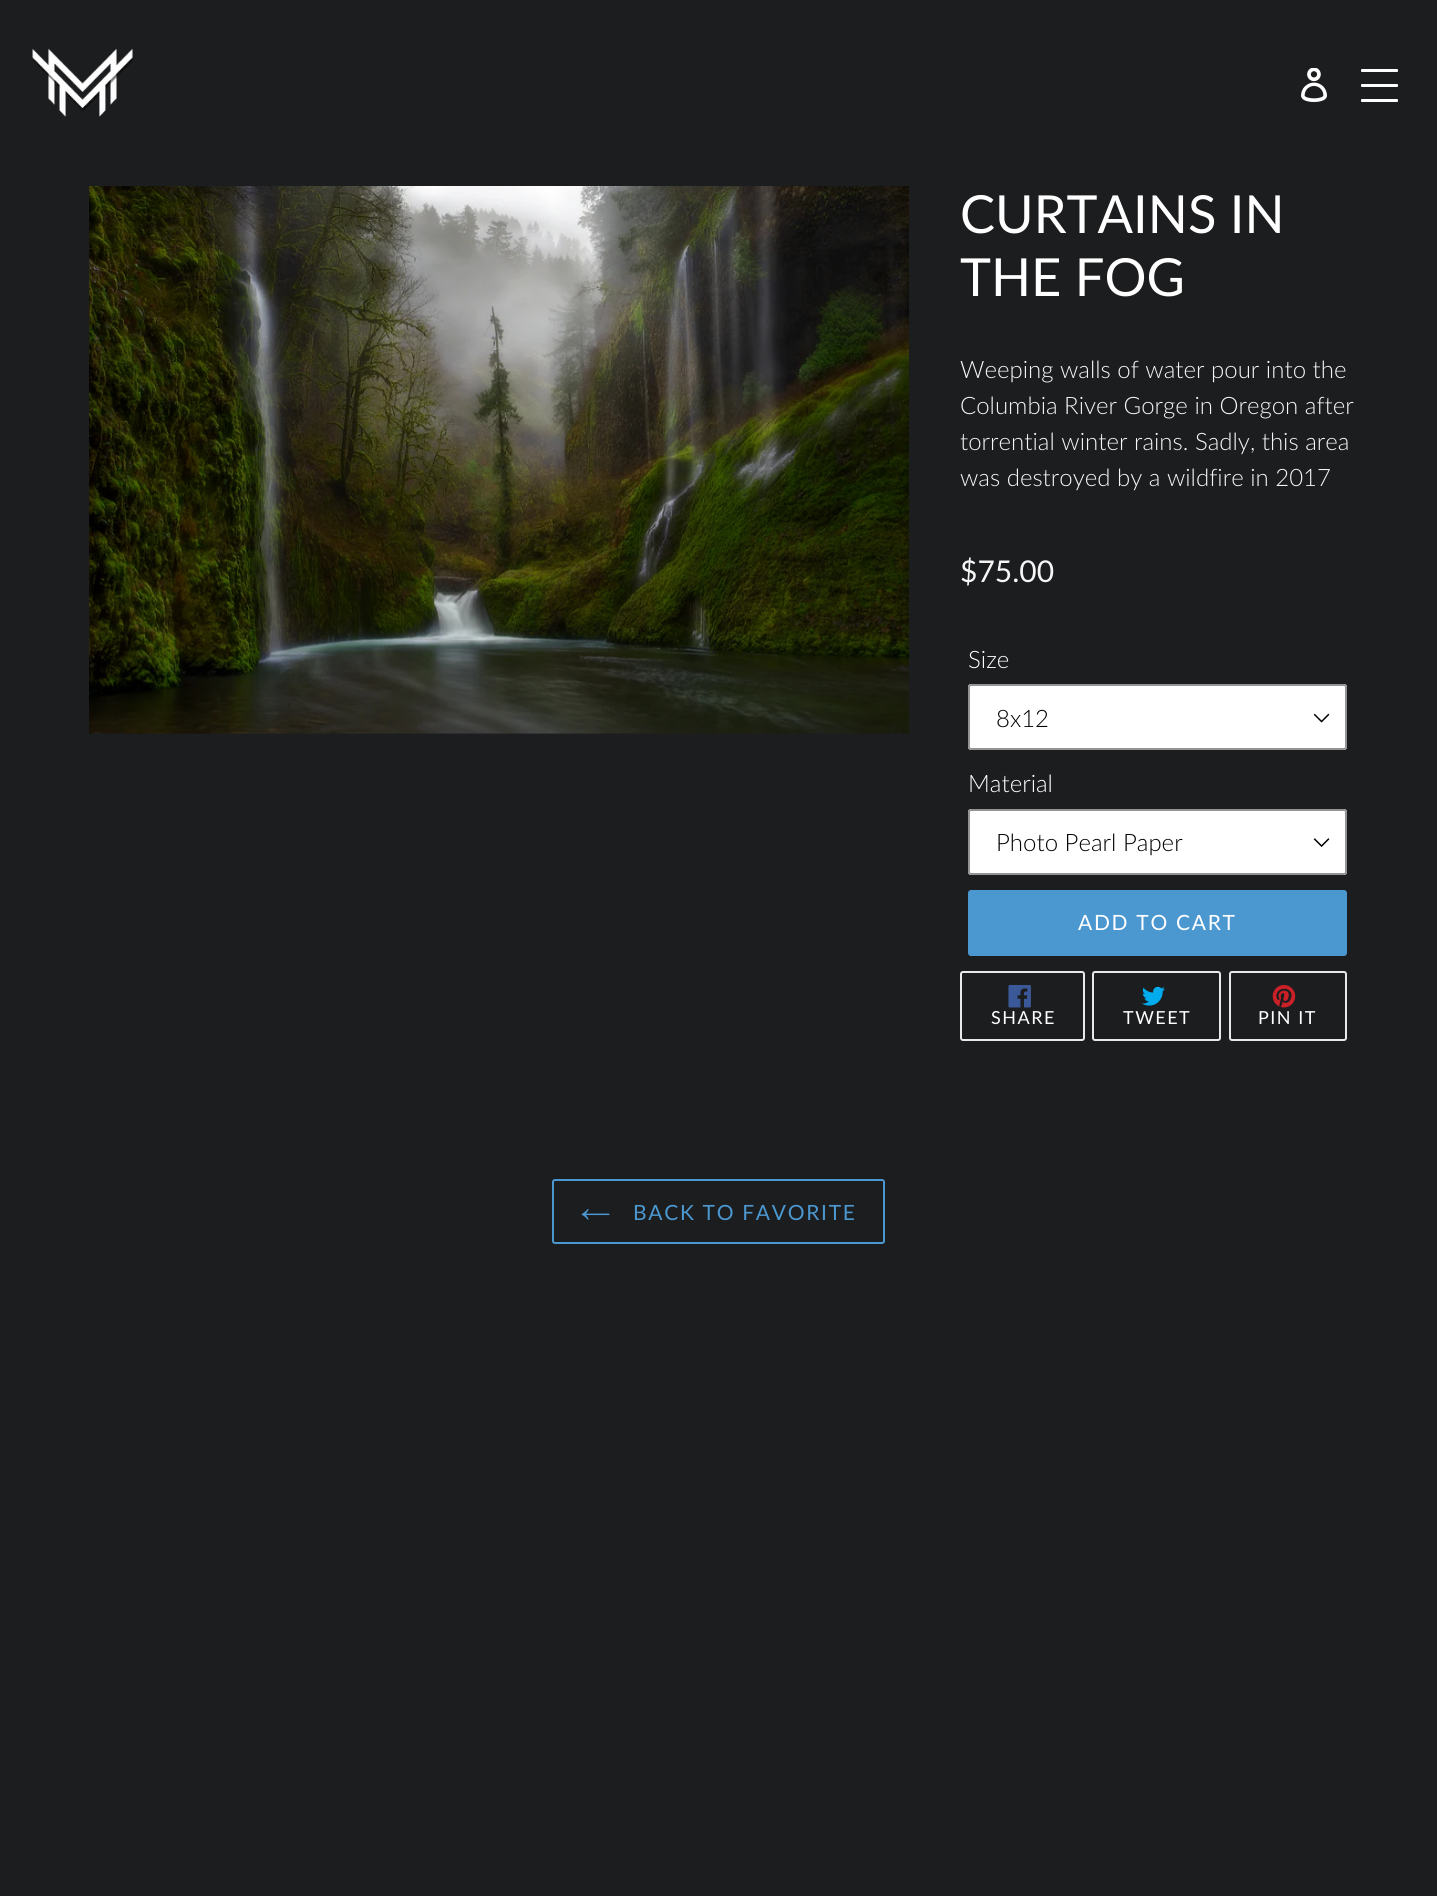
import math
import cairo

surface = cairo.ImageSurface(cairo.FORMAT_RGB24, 1437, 1896)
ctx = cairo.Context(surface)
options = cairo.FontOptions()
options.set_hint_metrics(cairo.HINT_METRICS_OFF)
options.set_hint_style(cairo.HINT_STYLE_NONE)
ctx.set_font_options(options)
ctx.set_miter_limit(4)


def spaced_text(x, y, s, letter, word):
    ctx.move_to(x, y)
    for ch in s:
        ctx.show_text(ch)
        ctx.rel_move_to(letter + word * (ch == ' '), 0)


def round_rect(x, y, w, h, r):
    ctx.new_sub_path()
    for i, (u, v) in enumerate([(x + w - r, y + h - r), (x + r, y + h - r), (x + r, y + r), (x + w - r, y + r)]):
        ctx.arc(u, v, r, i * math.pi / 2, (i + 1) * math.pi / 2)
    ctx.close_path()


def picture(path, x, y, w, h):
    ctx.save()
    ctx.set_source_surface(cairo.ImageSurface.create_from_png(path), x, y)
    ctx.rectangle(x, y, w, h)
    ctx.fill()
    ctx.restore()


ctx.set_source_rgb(0.11, 0.114, 0.122)
ctx.paint()
picture("img1.png", 32, 48, 101, 69)
picture("img2.png", 1301, 68, 26, 34)
ctx.set_source_rgb(1, 1, 1)
round_rect(1361, 69, 37, 3, 1)
ctx.fill()
round_rect(1361, 84, 37, 3, 1)
ctx.fill()
round_rect(1361, 99, 37, 3, 1)
ctx.fill()
picture("img3.png", 89, 186, 820, 548)
ctx.select_font_face("Lato")
ctx.set_font_size(52.5)
ctx.move_to(960, 233)
ctx.show_text("CURTAINS IN")
ctx.move_to(960, 296)
ctx.show_text("THE FOG")
ctx.select_font_face("Lato Light")
ctx.set_font_size(24)
ctx.set_source_rgb(0.961, 0.961, 0.961)
ctx.move_to(960, 378)
ctx.show_text("Weeping walls of water pour into the")
ctx.move_to(960, 414)
ctx.show_text("Columbia River Gorge in Oregon after")
ctx.move_to(960, 450)
ctx.show_text("torrential winter rains. Sadly, this area")
ctx.move_to(960, 486)
ctx.show_text("was destroyed by a wildfire in 2017")
ctx.select_font_face("Lato")
ctx.set_font_size(30)
ctx.move_to(960, 582)
ctx.show_text("$75.00")
ctx.select_font_face("Lato Light")
ctx.set_font_size(24)
ctx.set_source_rgb(1, 1, 1)
ctx.move_to(968, 668)
ctx.show_text("Size")
round_rect(968, 684, 379, 66, 3)
ctx.fill()
picture("img4.png", 1313, 713, 17, 10)
round_rect(969, 685, 377, 64, 2)
ctx.set_source_rgb(0.58, 0.58, 0.58)
ctx.stroke()
ctx.set_source_rgb(0, 0, 0)
ctx.move_to(996, 727)
ctx.show_text("8x12")
ctx.set_source_rgb(1, 1, 1)
ctx.move_to(968, 792)
ctx.show_text("Material")
round_rect(968, 809, 379, 66, 3)
ctx.fill()
picture("img5.png", 1313, 838, 17, 9)
round_rect(969, 810, 377, 64, 2)
ctx.set_source_rgb(0.58, 0.58, 0.58)
ctx.stroke()
ctx.set_source_rgb(0, 0, 0)
ctx.move_to(996, 851)
ctx.show_text("Photo Pearl Paper")
ctx.set_source_rgb(0.294, 0.596, 0.82)
round_rect(968, 890, 379, 66, 3)
ctx.fill()
ctx.select_font_face("Lato")
ctx.set_font_size(21)
ctx.set_source_rgb(1, 1, 1)
spaced_text(1078, 930, "ADD TO CART", 1.7, 0)
round_rect(961, 972, 123, 68, 2)
ctx.set_source_rgb(0.91, 0.914, 0.922)
ctx.stroke()
picture("img6.png", 1008, 985, 23, 23)
ctx.set_font_size(18)
ctx.set_source_rgb(1, 1, 1)
spaced_text(991, 1024, "SHARE", 1.5, 0)
round_rect(1093, 972, 127, 68, 2)
ctx.set_source_rgb(0.91, 0.914, 0.922)
ctx.stroke()
picture("img7.png", 1142, 986, 23, 20)
ctx.set_source_rgb(1, 1, 1)
spaced_text(1123, 1024, "TWEET", 1.5, 0)
round_rect(1230, 972, 116, 68, 2)
ctx.set_source_rgb(0.91, 0.914, 0.922)
ctx.stroke()
picture("img8.png", 1272, 985, 24, 23)
ctx.set_source_rgb(1, 1, 1)
spaced_text(1258, 1024, "PIN IT", 1.5, 0)
round_rect(553, 1180, 331, 63, 2)
ctx.set_source_rgb(0.294, 0.596, 0.82)
ctx.stroke()
picture("img9.png", 581, 1209, 29, 11)
ctx.set_font_size(21)
spaced_text(633, 1220, "BACK TO FAVORITE", 1.7, 0)
surface.write_to_png("page.png")
